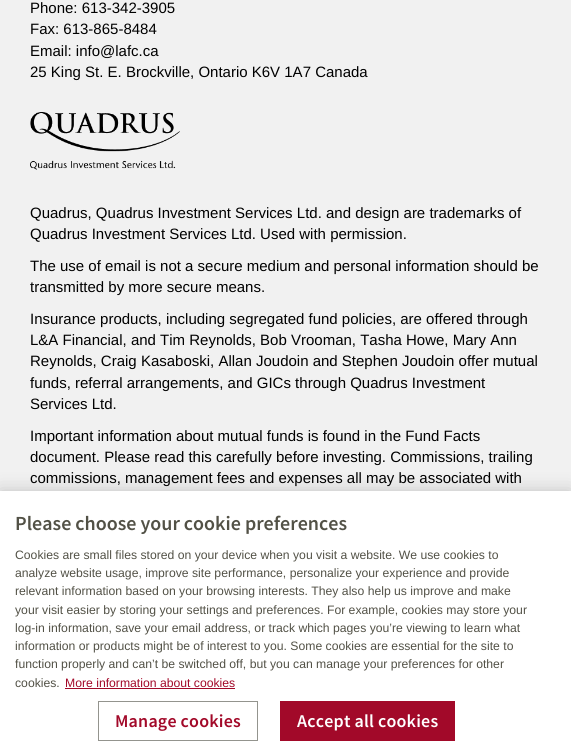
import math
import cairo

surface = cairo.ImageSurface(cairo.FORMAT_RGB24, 571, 751)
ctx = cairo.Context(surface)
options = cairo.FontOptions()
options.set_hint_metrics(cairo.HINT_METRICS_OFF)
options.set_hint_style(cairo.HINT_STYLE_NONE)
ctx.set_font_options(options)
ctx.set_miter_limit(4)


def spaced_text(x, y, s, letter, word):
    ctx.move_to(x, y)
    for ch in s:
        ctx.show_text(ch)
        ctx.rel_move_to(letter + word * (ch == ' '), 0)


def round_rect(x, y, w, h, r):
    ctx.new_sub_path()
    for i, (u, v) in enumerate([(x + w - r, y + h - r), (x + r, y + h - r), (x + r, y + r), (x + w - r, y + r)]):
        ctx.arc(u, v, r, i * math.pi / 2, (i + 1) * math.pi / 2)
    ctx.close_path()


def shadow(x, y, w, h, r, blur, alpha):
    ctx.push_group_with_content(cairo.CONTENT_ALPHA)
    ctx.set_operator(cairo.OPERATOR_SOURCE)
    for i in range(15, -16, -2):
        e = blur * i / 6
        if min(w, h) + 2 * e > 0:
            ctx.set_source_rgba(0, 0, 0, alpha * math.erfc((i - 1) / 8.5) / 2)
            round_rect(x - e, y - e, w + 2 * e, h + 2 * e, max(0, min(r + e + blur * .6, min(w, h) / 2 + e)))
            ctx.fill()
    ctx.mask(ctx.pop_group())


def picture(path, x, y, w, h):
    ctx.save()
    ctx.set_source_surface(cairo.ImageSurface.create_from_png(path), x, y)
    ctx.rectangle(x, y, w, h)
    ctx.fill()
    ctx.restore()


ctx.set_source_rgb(0.945, 0.945, 0.945)
ctx.paint()
ctx.select_font_face("Liberation Sans")
ctx.set_font_size(15)
ctx.set_source_rgb(0, 0, 0)
ctx.move_to(30, 13)
ctx.show_text("Phone: 613-342-3905")
ctx.move_to(30, 34)
ctx.show_text("Fax: 613-865-8484")
ctx.move_to(30, 56)
ctx.show_text("Email: info@lafc.ca")
ctx.move_to(30, 77)
ctx.show_text("25 King St. E. Brockville, Ontario K6V 1A7 Canada")
picture("img1.png", 30, 112, 150, 58)
ctx.move_to(30, 218)
ctx.show_text("Quadrus, Quadrus Investment Services Ltd. and design are trademarks of")
ctx.move_to(30, 239)
ctx.show_text("Quadrus Investment Services Ltd. Used with permission.")
ctx.move_to(30, 271)
ctx.show_text("The use of email is not a secure medium and personal information should be")
ctx.move_to(30, 292)
ctx.show_text("transmitted by more secure means.")
ctx.move_to(30, 324)
ctx.show_text("Insurance products, including segregated fund policies, are offered through")
ctx.move_to(30, 345)
ctx.show_text("L&A Financial, and Tim Reynolds, Bob Vrooman, Tasha Howe, Mary Ann")
ctx.move_to(30, 366)
ctx.show_text("Reynolds, Craig Kasaboski, Allan Joudoin and Stephen Joudoin offer mutual")
ctx.move_to(30, 388)
ctx.show_text("funds, referral arrangements, and GICs through Quadrus Investment")
ctx.move_to(30, 409)
ctx.show_text("Services Ltd.")
ctx.move_to(30, 441)
ctx.show_text("Important information about mutual funds is found in the Fund Facts")
ctx.move_to(30, 462)
ctx.show_text("document. Please read this carefully before investing. Commissions, trailing")
ctx.move_to(30, 483)
ctx.show_text("commissions, management fees and expenses all may be associated with")
ctx.set_source_rgb(0, 0, 0)
shadow(0, 491, 571, 260, 0, 9, 0.2)
ctx.set_source_rgb(1, 1, 1)
ctx.rectangle(0, 491, 571, 260)
ctx.fill()
ctx.select_font_face("Source Sans Pro SemiBold")
ctx.set_font_size(20)
ctx.set_source_rgb(0.322, 0.318, 0.275)
ctx.move_to(15, 530)
ctx.show_text("Please choose your cookie preferences")
ctx.select_font_face("Liberation Sans")
ctx.set_font_size(12.2)
ctx.move_to(15, 559)
ctx.show_text("Cookies are small files stored on your device when you visit a website. We use cookies to")
ctx.move_to(15, 577)
ctx.show_text("analyze website usage, improve site performance, personalize your experience and provide")
ctx.move_to(15, 595)
ctx.show_text("relevant information based on your browsing interests. They also help us improve and make")
ctx.move_to(15, 614)
ctx.show_text("your visit easier by storing your settings and preferences. For example, cookies may store your")
ctx.move_to(15, 632)
ctx.show_text("log-in information, save your email address, or track which pages you’re viewing to learn what")
ctx.move_to(15, 650)
ctx.show_text("information or products might be of interest to you. Some cookies are essential for the site to")
ctx.move_to(15, 668)
ctx.show_text("function properly and can’t be switched off, but you can manage your preferences for other")
ctx.move_to(15, 687)
ctx.show_text("cookies.")
ctx.set_source_rgb(0.635, 0.039, 0.161)
ctx.move_to(65, 687)
ctx.show_text("More information about cookies")
ctx.rectangle(65, 688, 170, 1)
ctx.fill()
ctx.rectangle(98.5, 701.5, 159, 39)
ctx.set_source_rgb(0.576, 0.58, 0.557)
ctx.set_line_width(1)
ctx.stroke()
ctx.select_font_face("Source Sans Pro SemiBold")
ctx.set_font_size(18)
ctx.set_source_rgb(0.635, 0.039, 0.161)
spaced_text(115, 727, "Manage cookies", 0.2, 0)
ctx.rectangle(280, 701, 175, 40)
ctx.fill()
ctx.set_source_rgb(1, 1, 1)
spaced_text(297, 727, "Accept all cookies", 0.2, 0)
surface.write_to_png("page.png")
